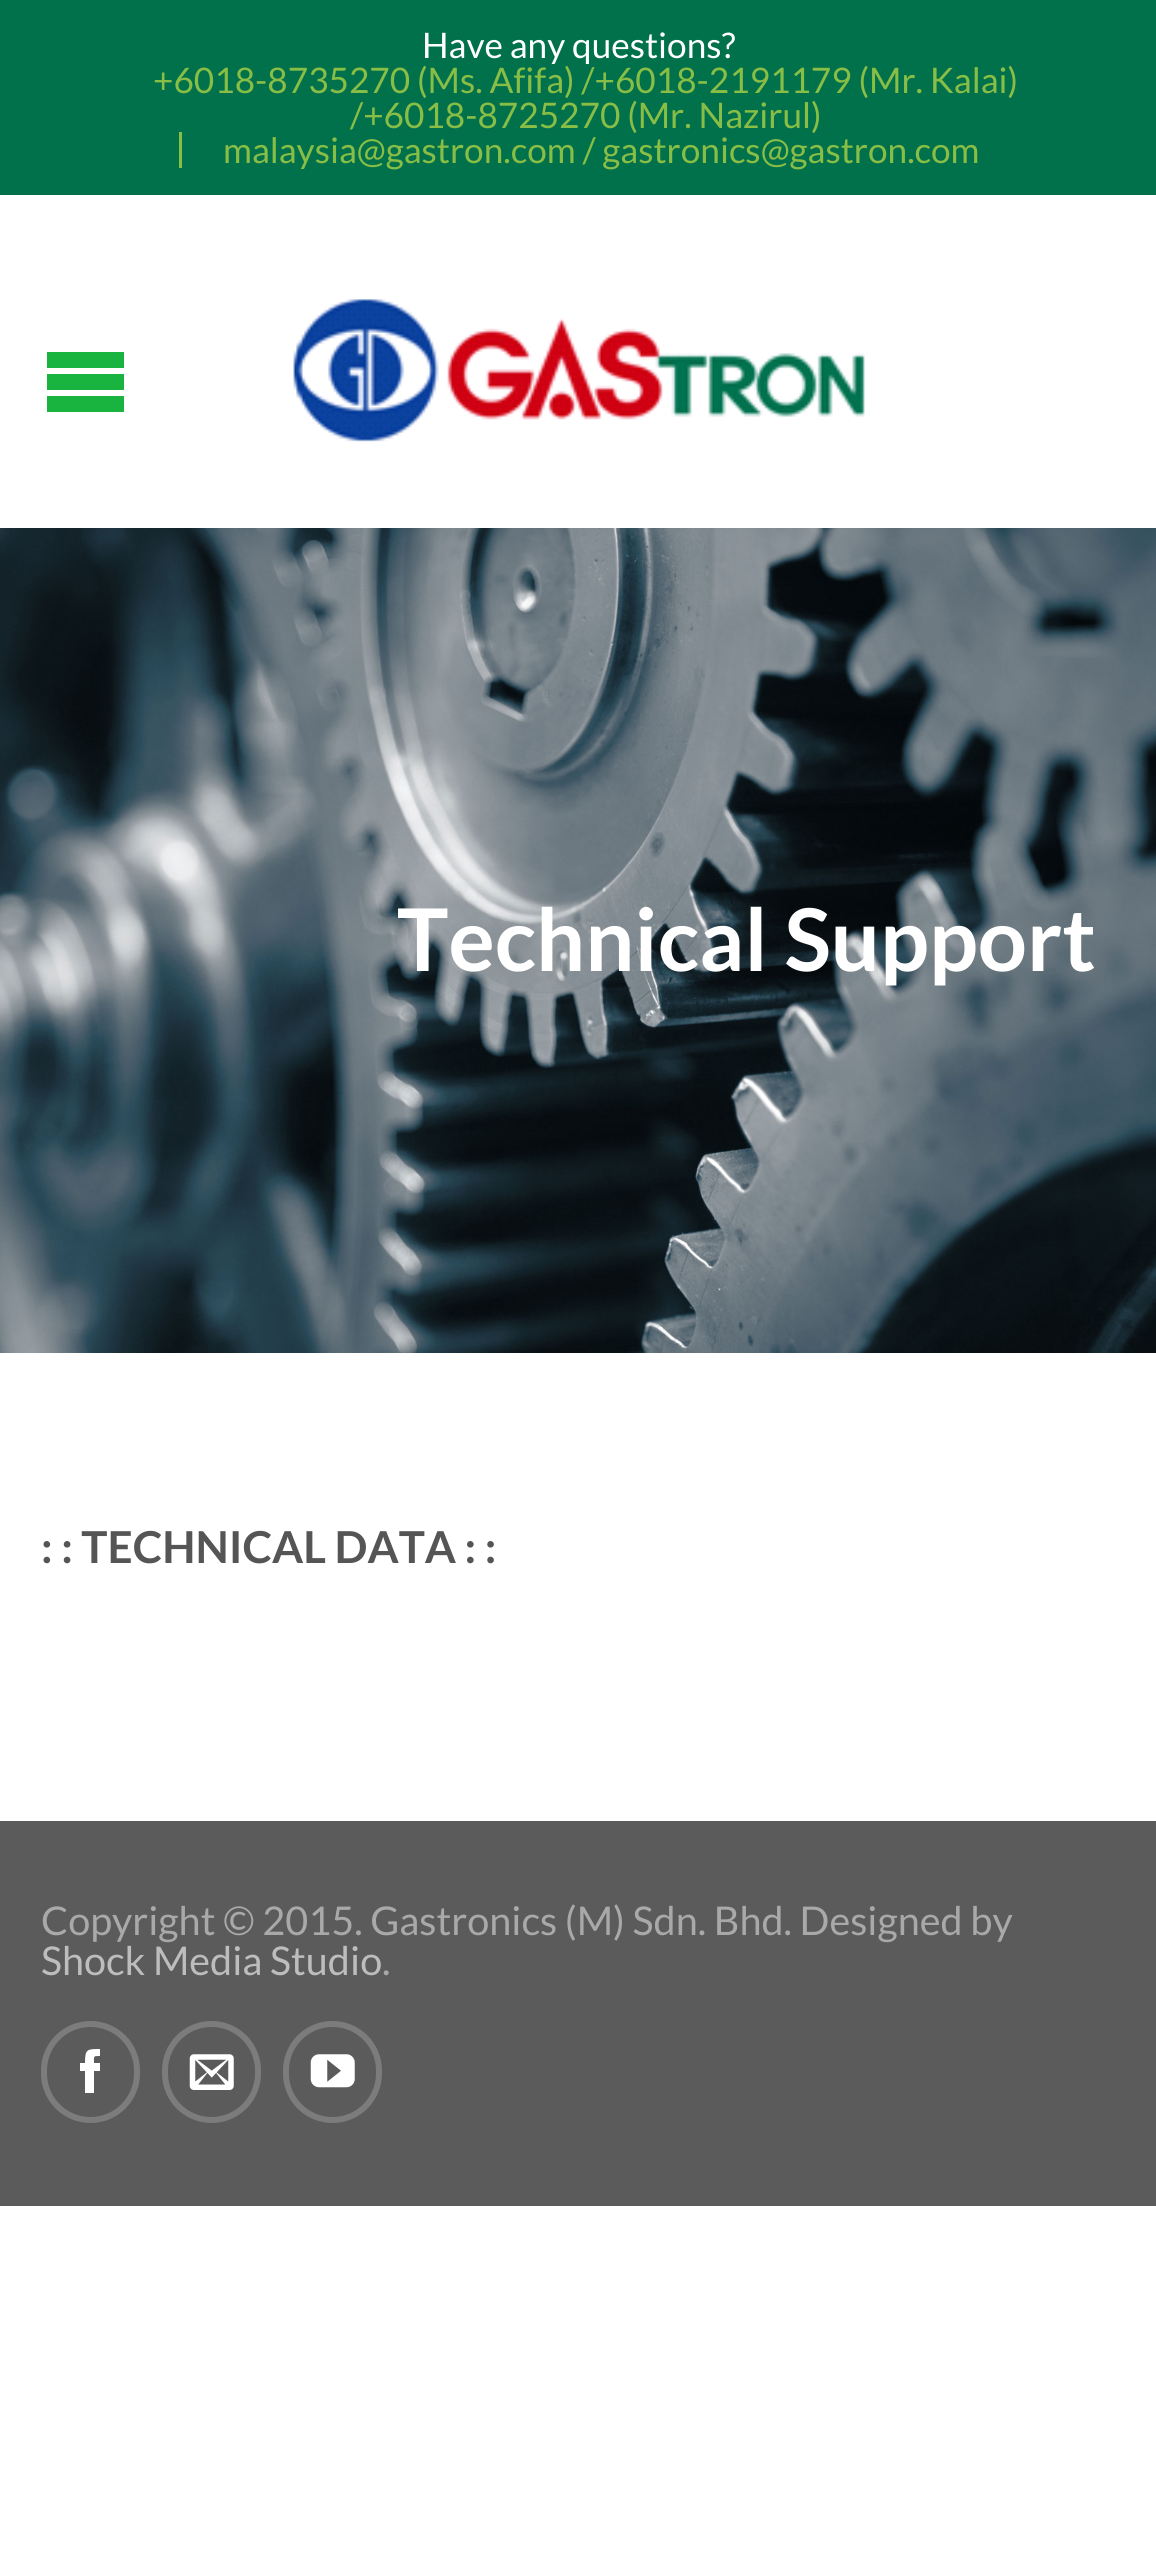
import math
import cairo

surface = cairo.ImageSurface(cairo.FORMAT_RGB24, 1156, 2570)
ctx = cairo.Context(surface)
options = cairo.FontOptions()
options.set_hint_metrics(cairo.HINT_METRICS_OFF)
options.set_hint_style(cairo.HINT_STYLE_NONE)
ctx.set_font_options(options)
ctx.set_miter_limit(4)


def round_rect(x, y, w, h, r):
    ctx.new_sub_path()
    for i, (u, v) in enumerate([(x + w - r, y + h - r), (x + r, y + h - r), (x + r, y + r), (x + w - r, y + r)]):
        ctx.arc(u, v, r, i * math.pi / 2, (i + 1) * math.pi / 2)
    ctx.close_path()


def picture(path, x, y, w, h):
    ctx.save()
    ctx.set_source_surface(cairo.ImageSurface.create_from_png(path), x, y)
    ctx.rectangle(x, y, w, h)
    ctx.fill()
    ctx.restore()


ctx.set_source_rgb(1, 1, 1)
ctx.paint()
ctx.set_source_rgb(0, 0.443, 0.29)
ctx.rectangle(0, 0, 1156, 195)
ctx.fill()
ctx.select_font_face("Lato")
ctx.set_font_size(35.2)
ctx.set_source_rgb(1, 1, 1)
ctx.move_to(422, 58)
ctx.show_text("Have any questions?")
ctx.set_source_rgb(0.533, 0.741, 0.275)
ctx.move_to(153, 93)
ctx.show_text("+6018-8735270 (Ms. Afifa) /+6018-2191179 (Mr. Kalai)")
ctx.move_to(350, 128)
ctx.show_text("/+6018-8725270 (Mr. Nazirul)")
ctx.rectangle(179, 132, 3, 36)
ctx.fill()
ctx.move_to(223, 163)
ctx.show_text("malaysia@gastron.com / gastronics@gastron.com")
ctx.set_source_rgb(0.098, 0.706, 0.247)
ctx.new_path()
ctx.move_to(47, 352)
ctx.line_to(124, 352)
ctx.line_to(124, 368)
ctx.line_to(47, 368)
ctx.close_path()
ctx.move_to(47, 374)
ctx.line_to(124, 374)
ctx.line_to(124, 390)
ctx.line_to(47, 390)
ctx.close_path()
ctx.move_to(47, 396)
ctx.line_to(124, 396)
ctx.line_to(124, 412)
ctx.line_to(47, 412)
ctx.close_path()
ctx.fill()
picture("img1.png", 293, 299, 572, 143)
picture("img2.png", 0, 528, 1156, 825)
ctx.select_font_face("Lato", cairo.FONT_SLANT_NORMAL, cairo.FONT_WEIGHT_BOLD)
ctx.set_font_size(86.5)
ctx.set_source_rgb(1, 1, 1)
ctx.move_to(397, 971)
ctx.show_text("Technical Support")
ctx.set_font_size(44)
ctx.set_source_rgb(0.333, 0.333, 0.333)
ctx.move_to(41, 1563)
ctx.show_text(": : TECHNICAL DATA : :")
ctx.set_source_rgb(0.357, 0.357, 0.357)
ctx.rectangle(0, 1821, 1156, 385)
ctx.fill()
ctx.select_font_face("Lato")
ctx.set_font_size(39.6)
ctx.set_source_rgb(0.663, 0.663, 0.663)
ctx.move_to(41, 1935)
ctx.show_text("Copyright © 2015. Gastronics (M) Sdn. Bhd. Designed by")
ctx.set_source_rgb(0.741, 0.741, 0.741)
ctx.move_to(41, 1975)
ctx.show_text("Shock Media Studio")
ctx.set_source_rgb(0.663, 0.663, 0.663)
ctx.move_to(382, 1975)
ctx.show_text(".")
round_rect(44, 2024, 93, 96, 46.5)
ctx.set_source_rgb(0.486, 0.486, 0.486)
ctx.set_line_width(6)
ctx.stroke()
ctx.set_source_rgb(1, 1, 1)
ctx.new_path()
ctx.move_to(94, 2093)
ctx.line_to(85, 2093)
ctx.line_to(85, 2071)
ctx.line_to(80, 2071)
ctx.line_to(80, 2063)
ctx.line_to(85, 2063)
ctx.curve_to(85, 2049, 87, 2049, 100, 2049)
ctx.line_to(100, 2056)
ctx.curve_to(93, 2056, 94, 2056, 94, 2063)
ctx.line_to(100, 2063)
ctx.line_to(100, 2071)
ctx.line_to(94, 2071)
ctx.close_path()
ctx.fill()
round_rect(165, 2024, 93, 96, 46.5)
ctx.set_source_rgb(0.486, 0.486, 0.486)
ctx.stroke()
picture("img3.png", 189, 2054, 45, 36)
round_rect(286, 2024, 93, 96, 46.5)
ctx.stroke()
picture("img4.png", 310, 2054, 45, 34)
surface.write_to_png("page.png")
